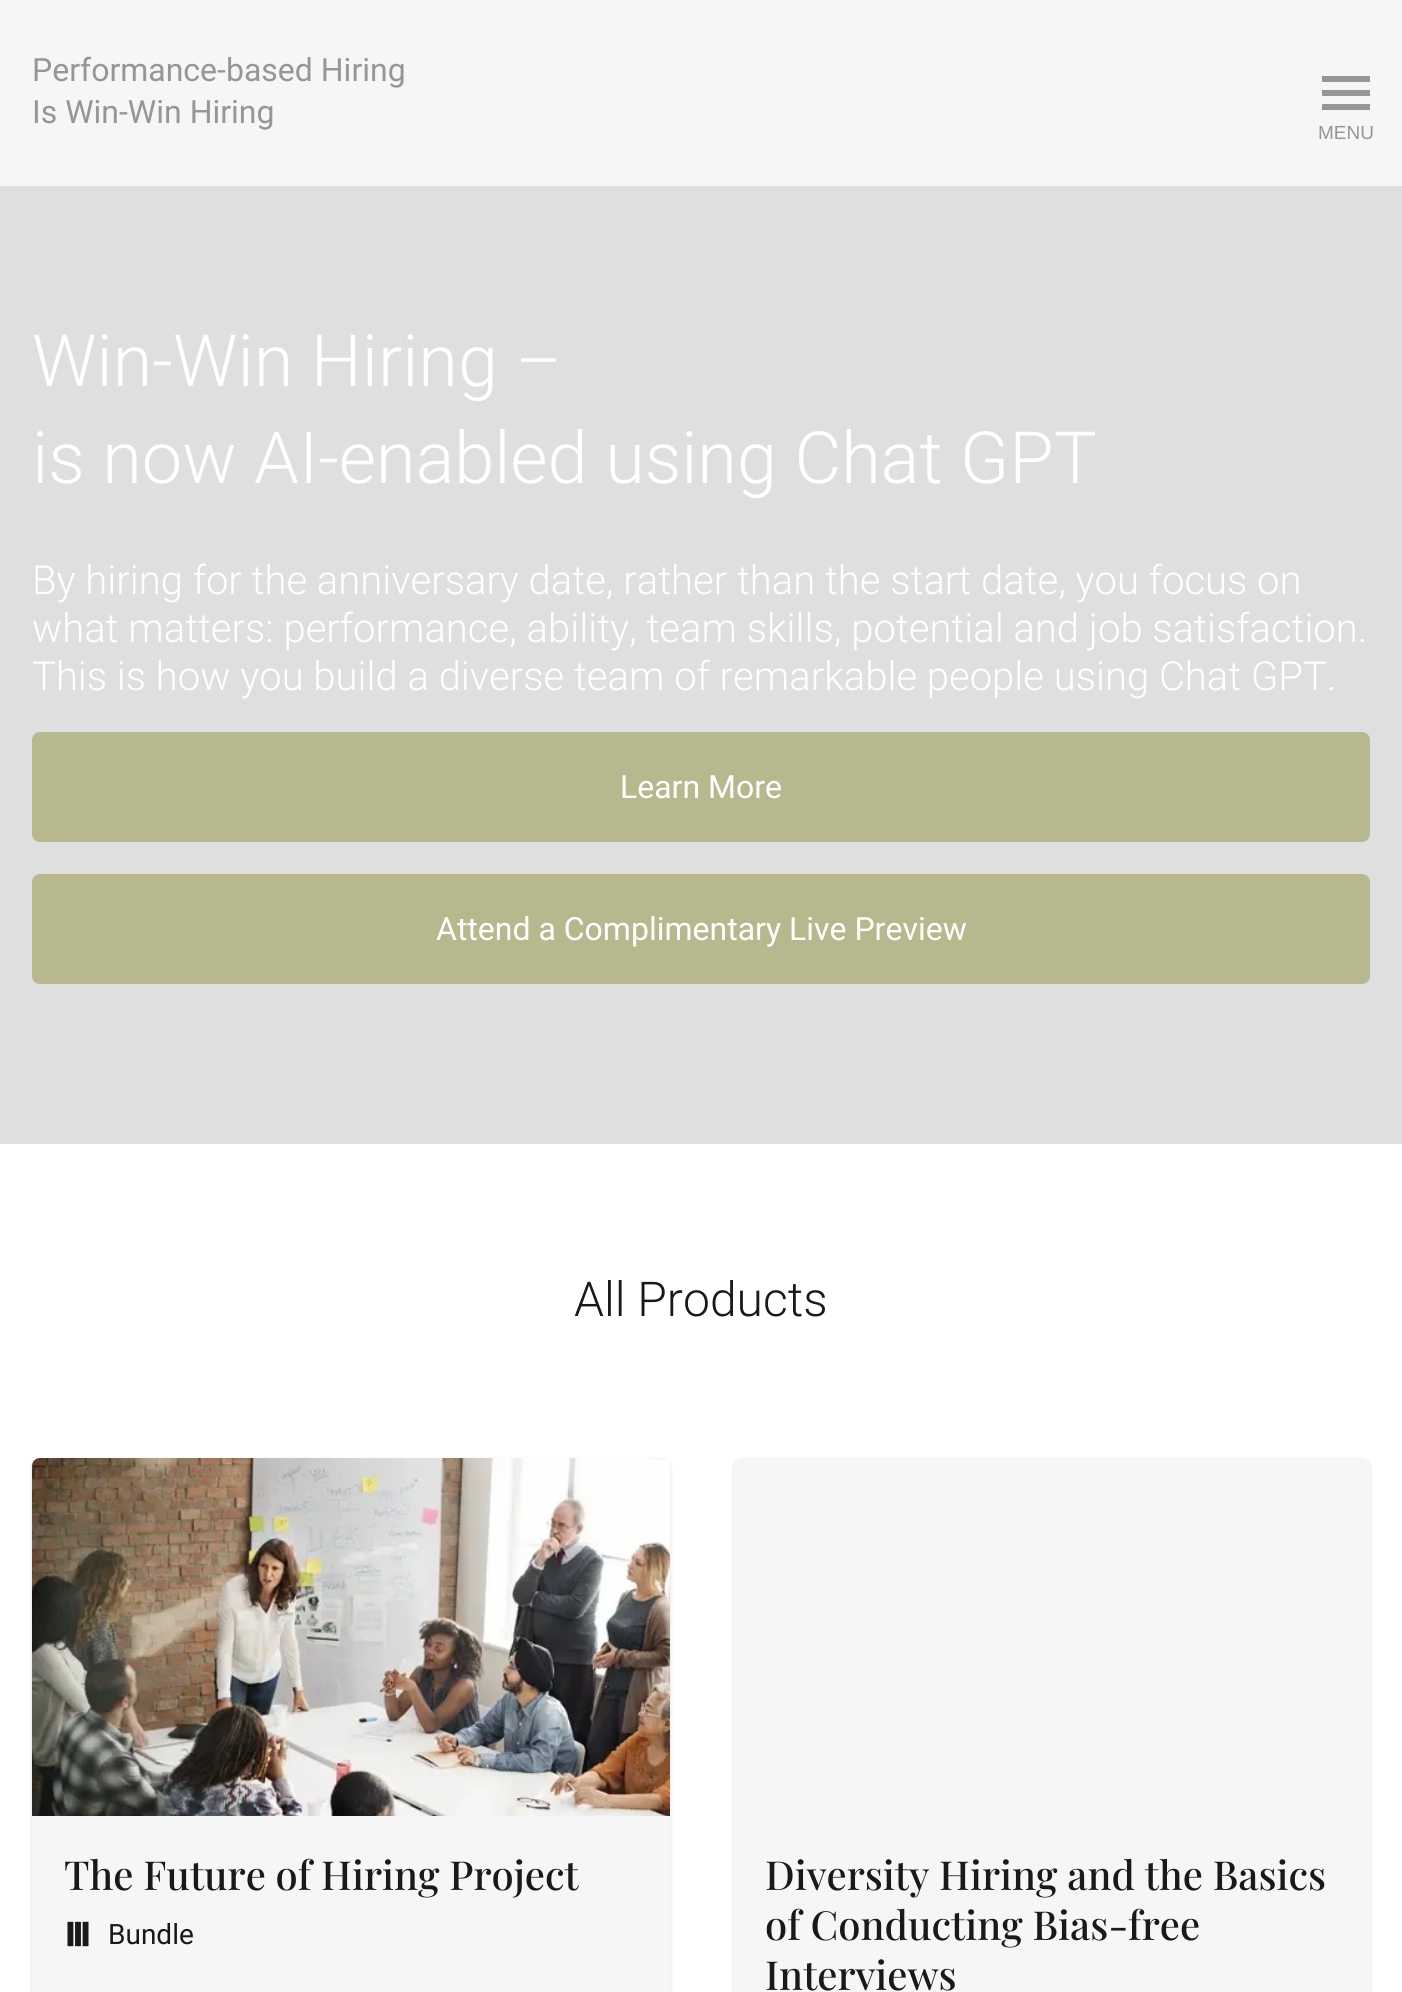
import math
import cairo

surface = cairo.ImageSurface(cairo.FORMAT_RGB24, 1402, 1992)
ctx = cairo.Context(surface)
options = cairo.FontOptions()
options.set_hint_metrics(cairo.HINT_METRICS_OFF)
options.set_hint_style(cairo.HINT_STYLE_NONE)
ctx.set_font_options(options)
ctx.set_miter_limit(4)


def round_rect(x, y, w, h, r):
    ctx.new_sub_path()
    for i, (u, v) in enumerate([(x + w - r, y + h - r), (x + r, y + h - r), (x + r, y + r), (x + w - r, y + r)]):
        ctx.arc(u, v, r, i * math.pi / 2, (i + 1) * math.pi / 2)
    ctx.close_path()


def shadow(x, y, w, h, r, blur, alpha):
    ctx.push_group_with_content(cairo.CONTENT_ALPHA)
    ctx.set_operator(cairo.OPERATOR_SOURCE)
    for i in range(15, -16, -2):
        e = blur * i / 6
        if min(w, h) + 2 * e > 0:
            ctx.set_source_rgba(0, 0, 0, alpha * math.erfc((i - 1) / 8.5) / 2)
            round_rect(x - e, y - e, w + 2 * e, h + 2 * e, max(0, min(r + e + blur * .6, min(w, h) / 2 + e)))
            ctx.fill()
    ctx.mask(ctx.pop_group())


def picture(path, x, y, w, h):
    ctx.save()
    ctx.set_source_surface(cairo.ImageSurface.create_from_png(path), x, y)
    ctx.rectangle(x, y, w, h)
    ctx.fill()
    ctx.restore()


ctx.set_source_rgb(1, 1, 1)
ctx.paint()
ctx.set_source_rgb(0.961, 0.961, 0.961)
ctx.rectangle(0, 0, 1402, 186)
ctx.fill()
ctx.select_font_face("Roboto")
ctx.set_font_size(32)
ctx.set_source_rgb(0.588, 0.588, 0.588)
ctx.move_to(32, 81)
ctx.show_text("Performance-based Hiring")
ctx.move_to(32, 123)
ctx.show_text("Is Win-Win Hiring")
ctx.rectangle(1322, 90, 48, 6)
ctx.fill()
ctx.rectangle(1322, 76, 48, 6)
ctx.fill()
ctx.rectangle(1322, 104, 48, 6)
ctx.fill()
ctx.select_font_face("Liberation Sans")
ctx.set_font_size(19)
ctx.move_to(1318, 139)
ctx.show_text("MENU")
ctx.set_source_rgb(0.875, 0.875, 0.875)
ctx.rectangle(0, 186, 1402, 958)
ctx.fill()
ctx.select_font_face("Roboto Light")
ctx.set_font_size(72)
ctx.set_source_rgb(1, 1, 1)
ctx.move_to(32, 386)
ctx.show_text("Win-Win Hiring –")
ctx.move_to(32, 483)
ctx.show_text("is now AI-enabled using Chat GPT")
ctx.set_font_size(40)
ctx.move_to(32, 594)
ctx.show_text("By hiring for the anniversary date, rather than the start date, you focus on")
ctx.move_to(32, 642)
ctx.show_text("what matters: performance, ability, team skills, potential and job satisfaction.")
ctx.move_to(32, 690)
ctx.show_text("This is how you build a diverse team of remarkable people using Chat GPT.")
ctx.set_source_rgb(0.722, 0.722, 0.561)
round_rect(32, 732, 1338, 110, 8)
ctx.fill()
ctx.select_font_face("Roboto")
ctx.set_font_size(32)
ctx.set_source_rgb(1, 1, 1)
ctx.move_to(620, 798)
ctx.show_text("Learn More")
ctx.set_source_rgb(0.722, 0.722, 0.561)
round_rect(32, 874, 1338, 110, 8)
ctx.fill()
ctx.set_source_rgb(1, 1, 1)
ctx.move_to(436, 940)
ctx.show_text("Attend a Complimentary Live Preview")
ctx.select_font_face("Roboto Light")
ctx.set_font_size(48)
ctx.set_source_rgb(0.098, 0.098, 0.098)
ctx.move_to(574, 1316)
ctx.show_text("All Products")
ctx.set_source_rgb(0, 0, 0)
shadow(32, 1460, 638, 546, 8, 2, 0.15)
ctx.set_source_rgb(0.961, 0.961, 0.961)
round_rect(32, 1458, 638, 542, 8)
ctx.fill()
picture("img1.png", 32, 1458, 638, 358)
ctx.select_font_face("Playfair Display Medium")
ctx.set_font_size(40)
ctx.set_source_rgb(0.098, 0.098, 0.098)
ctx.move_to(64, 1890)
ctx.show_text("The Future of Hiring Project")
picture("img2.png", 67, 1921, 22, 26)
ctx.select_font_face("Roboto")
ctx.set_font_size(28)
ctx.move_to(108, 1944)
ctx.show_text("Bundle")
ctx.set_source_rgb(0, 0, 0)
shadow(734, 1460, 636, 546, 8, 2, 0.15)
ctx.set_source_rgb(0.961, 0.961, 0.961)
round_rect(734, 1458, 636, 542, 8)
ctx.fill()
ctx.select_font_face("Playfair Display Medium")
ctx.set_font_size(40)
ctx.set_source_rgb(0.098, 0.098, 0.098)
ctx.move_to(765, 1890)
ctx.show_text("Diversity Hiring and the Basics")
ctx.move_to(765, 1940)
ctx.show_text("of Conducting Bias-free")
ctx.move_to(765, 1990)
ctx.show_text("Interviews")
surface.write_to_png("page.png")
